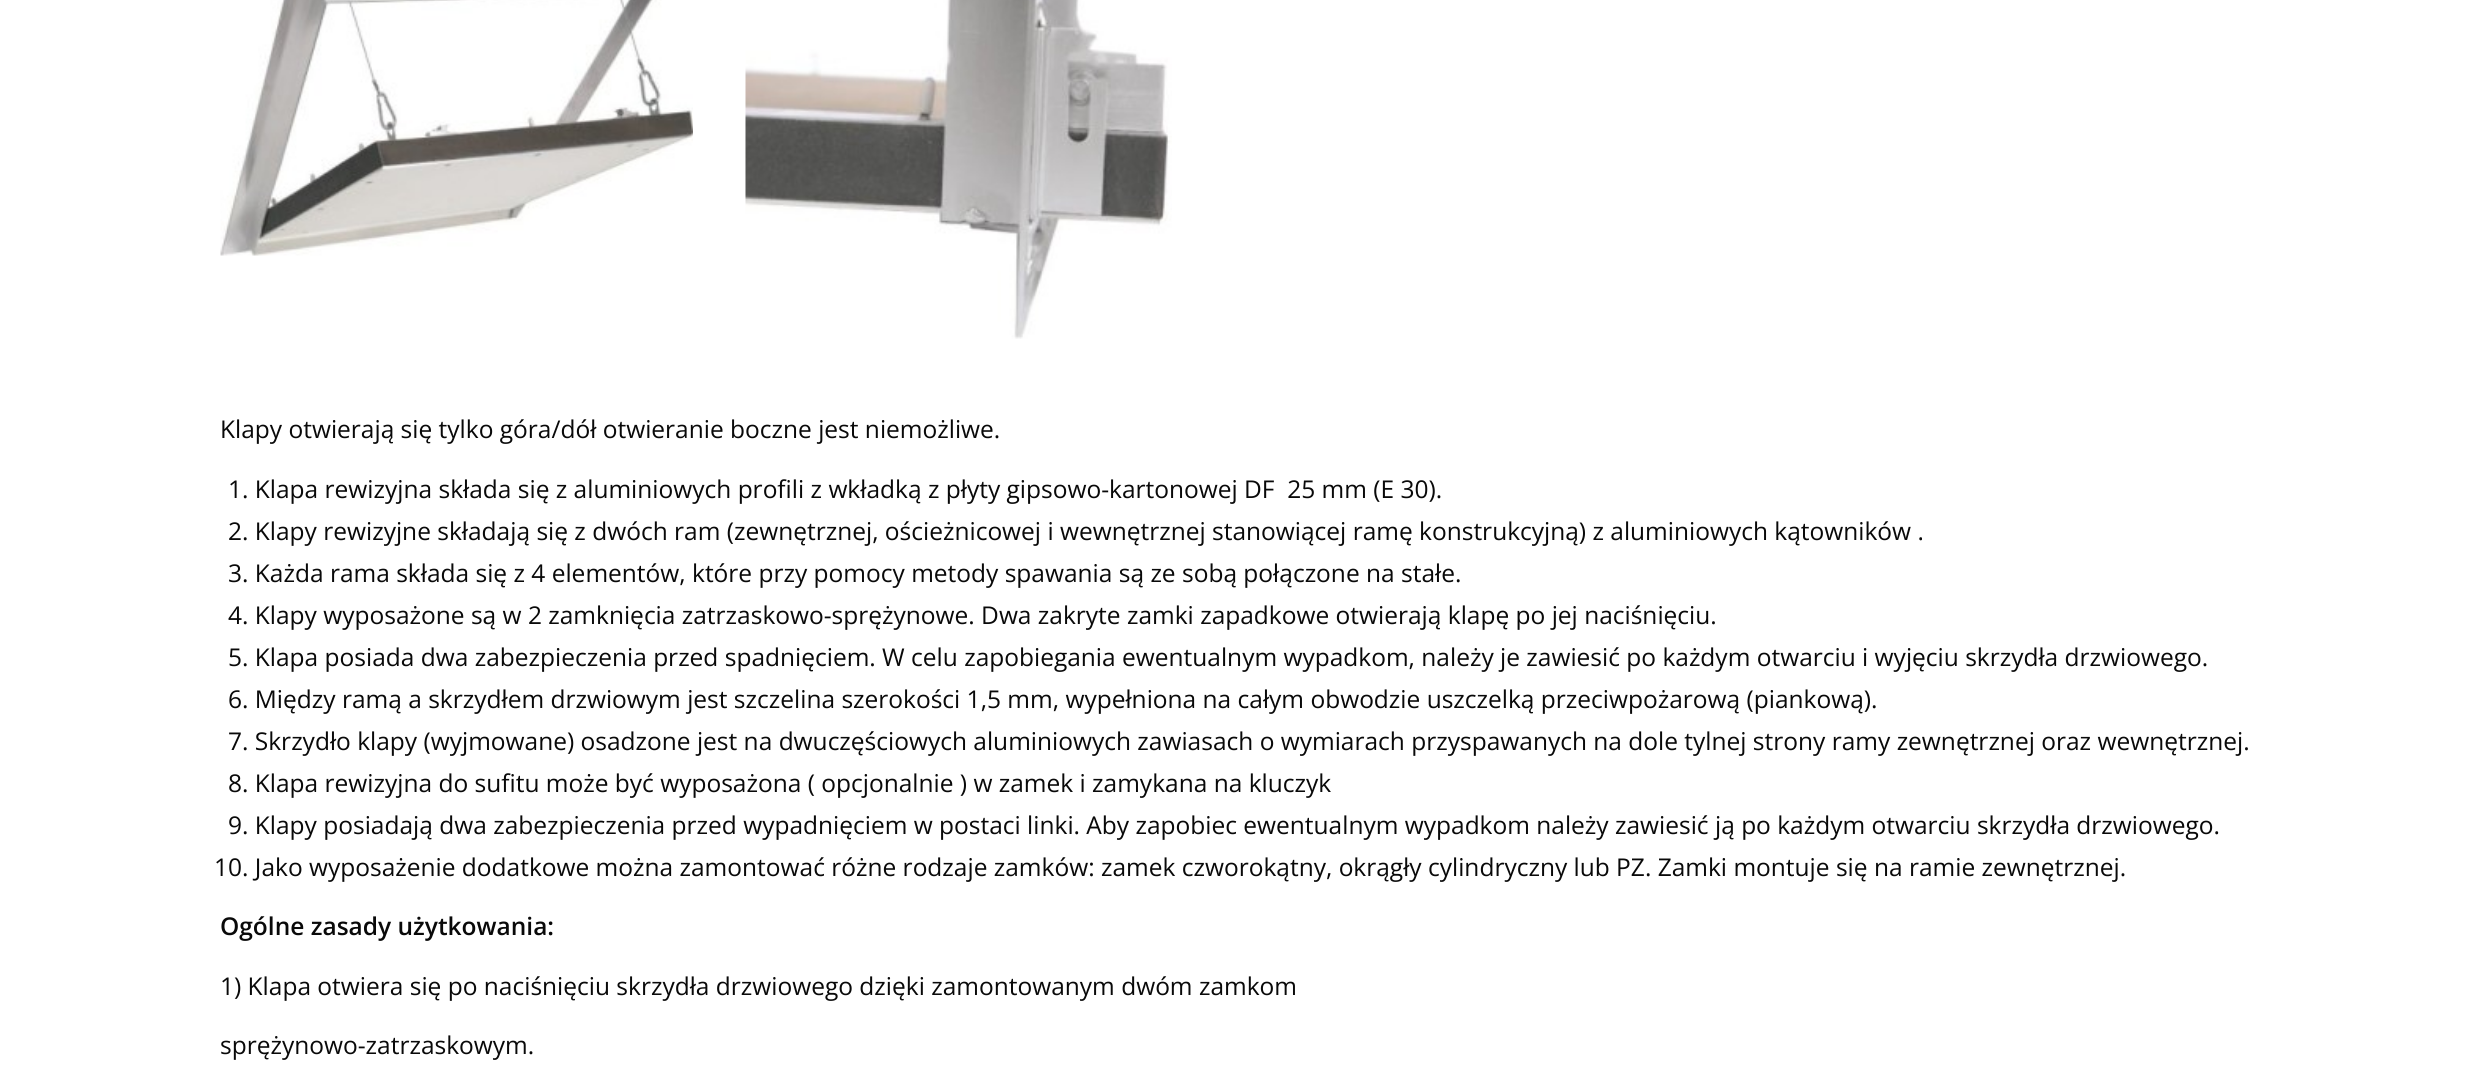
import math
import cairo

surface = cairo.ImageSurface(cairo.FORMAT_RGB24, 2486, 1078)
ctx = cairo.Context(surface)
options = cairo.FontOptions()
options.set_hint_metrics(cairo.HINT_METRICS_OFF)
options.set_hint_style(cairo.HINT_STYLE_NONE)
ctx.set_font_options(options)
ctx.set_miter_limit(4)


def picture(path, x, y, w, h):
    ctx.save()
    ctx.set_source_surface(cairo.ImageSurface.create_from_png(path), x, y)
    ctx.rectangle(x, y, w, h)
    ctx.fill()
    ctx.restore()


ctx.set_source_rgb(1, 1, 1)
ctx.paint()
picture("img1.png", 220, 0, 473, 256)
picture("img2.png", 745, 0, 427, 339)
ctx.select_font_face("Open Sans")
ctx.set_font_size(24.5)
ctx.set_source_rgb(0.039, 0.039, 0.039)
ctx.move_to(220, 438)
ctx.show_text("Klapy otwierają się tylko góra/dół otwieranie boczne jest niemożliwe.")
ctx.move_to(228, 498)
ctx.show_text("1. Klapa rewizyjna składa się z aluminiowych profili z wkładką z płyty gipsowo-kartonowej DF  25 mm (E 30).")
ctx.move_to(228, 540)
ctx.show_text("2. Klapy rewizyjne składają się z dwóch ram (zewnętrznej, ościeżnicowej i wewnętrznej stanowiącej ramę konstrukcyjną) z aluminiowych kątowników .")
ctx.move_to(228, 582)
ctx.show_text("3. Każda rama składa się z 4 elementów, które przy pomocy metody spawania są ze sobą połączone na stałe.")
ctx.move_to(228, 624)
ctx.show_text("4. Klapy wyposażone są w 2 zamknięcia zatrzaskowo-sprężynowe. Dwa zakryte zamki zapadkowe otwierają klapę po jej naciśnięciu.")
ctx.move_to(228, 666)
ctx.show_text("5. Klapa posiada dwa zabezpieczenia przed spadnięciem. W celu zapobiegania ewentualnym wypadkom, należy je zawiesić po każdym otwarciu i wyjęciu skrzydła drzwiowego.")
ctx.move_to(228, 708)
ctx.show_text("6. Między ramą a skrzydłem drzwiowym jest szczelina szerokości 1,5 mm, wypełniona na całym obwodzie uszczelką przeciwpożarową (piankową).")
ctx.move_to(228, 750)
ctx.show_text("7. Skrzydło klapy (wyjmowane) osadzone jest na dwuczęściowych aluminiowych zawiasach o wymiarach przyspawanych na dole tylnej strony ramy zewnętrznej oraz wewnętrznej.")
ctx.move_to(228, 792)
ctx.show_text("8. Klapa rewizyjna do sufitu może być wyposażona ( opcjonalnie ) w zamek i zamykana na kluczyk")
ctx.move_to(228, 834)
ctx.show_text("9. Klapy posiadają dwa zabezpieczenia przed wypadnięciem w postaci linki. Aby zapobiec ewentualnym wypadkom należy zawiesić ją po każdym otwarciu skrzydła drzwiowego.")
ctx.move_to(214, 876)
ctx.show_text("10. Jako wyposażenie dodatkowe można zamontować różne rodzaje zamków: zamek czworokątny, okrągły cylindryczny lub PZ. Zamki montuje się na ramie zewnętrznej.")
ctx.select_font_face("Open Sans SemiBold")
ctx.move_to(220, 935)
ctx.show_text("Ogólne zasady użytkowania:")
ctx.select_font_face("Open Sans")
ctx.move_to(220, 995)
ctx.show_text("1) Klapa otwiera się po naciśnięciu skrzydła drzwiowego dzięki zamontowanym dwóm zamkom")
ctx.move_to(220, 1054)
ctx.show_text("sprężynowo-zatrzaskowym.")
surface.write_to_png("page.png")
